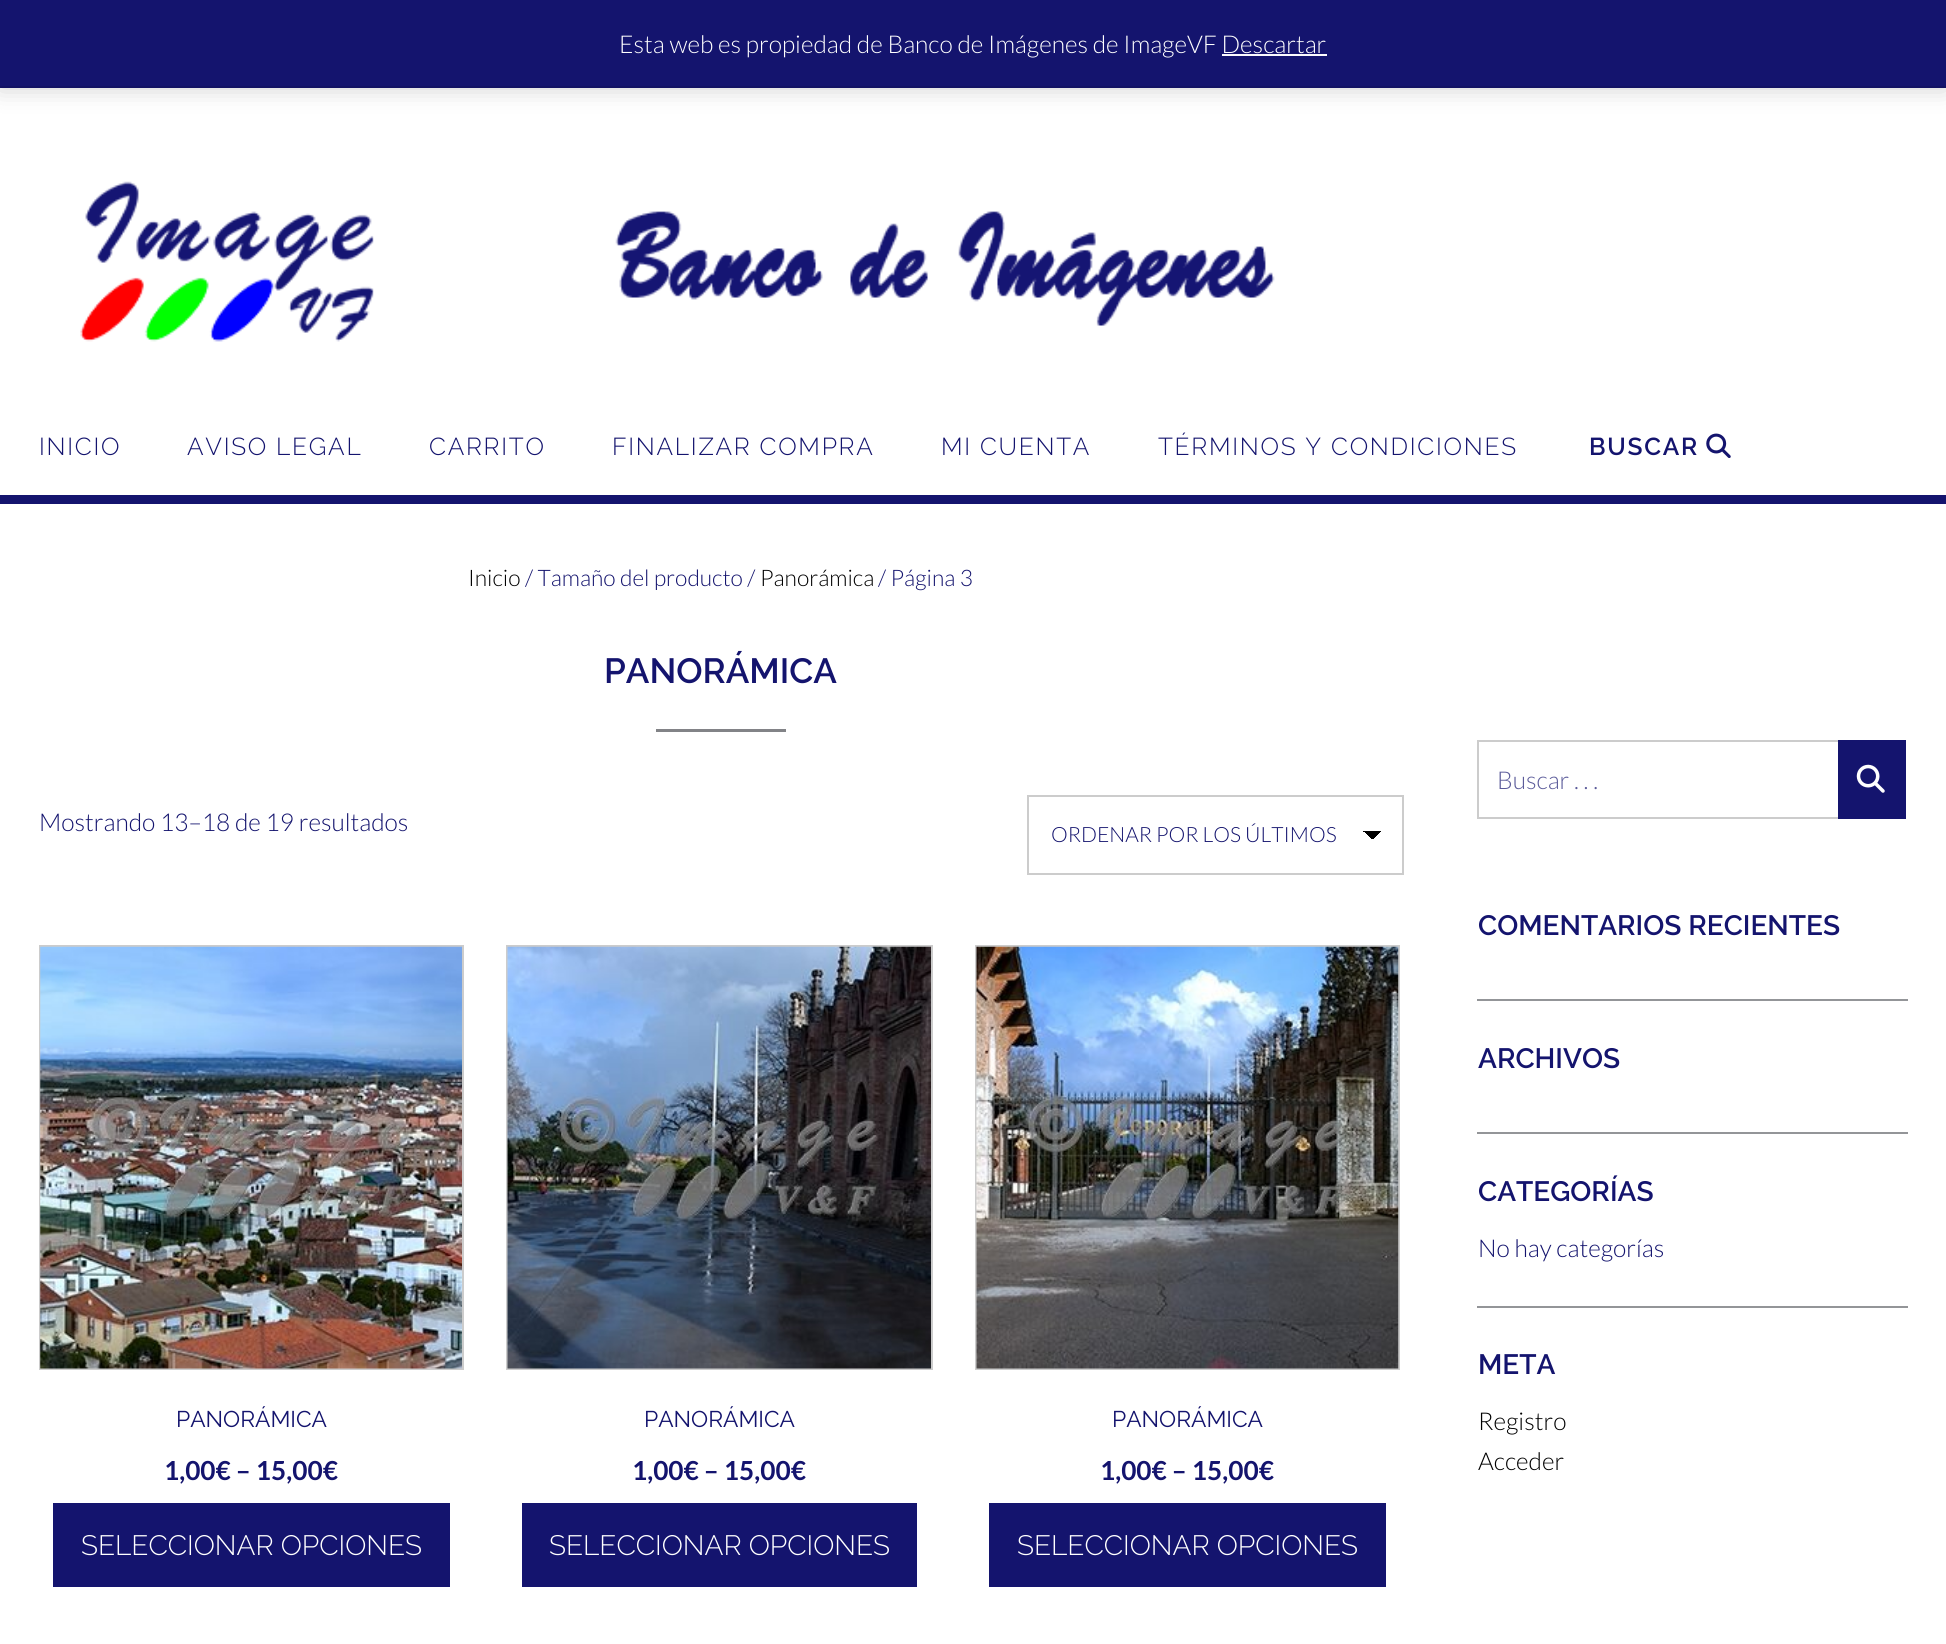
import math
import cairo

surface = cairo.ImageSurface(cairo.FORMAT_RGB24, 1946, 1644)
ctx = cairo.Context(surface)
options = cairo.FontOptions()
options.set_hint_metrics(cairo.HINT_METRICS_OFF)
options.set_hint_style(cairo.HINT_STYLE_NONE)
ctx.set_font_options(options)
ctx.set_miter_limit(4)


def spaced_text(x, y, s, letter, word):
    ctx.move_to(x, y)
    for ch in s:
        ctx.show_text(ch)
        ctx.rel_move_to(letter + word * (ch == ' '), 0)


def round_rect(x, y, w, h, r):
    ctx.new_sub_path()
    for i, (u, v) in enumerate([(x + w - r, y + h - r), (x + r, y + h - r), (x + r, y + r), (x + w - r, y + r)]):
        ctx.arc(u, v, r, i * math.pi / 2, (i + 1) * math.pi / 2)
    ctx.close_path()


def shadow(x, y, w, h, r, blur, alpha):
    ctx.push_group_with_content(cairo.CONTENT_ALPHA)
    ctx.set_operator(cairo.OPERATOR_SOURCE)
    for i in range(15, -16, -2):
        e = blur * i / 6
        if min(w, h) + 2 * e > 0:
            ctx.set_source_rgba(0, 0, 0, alpha * math.erfc((i - 1) / 8.5) / 2)
            round_rect(x - e, y - e, w + 2 * e, h + 2 * e, max(0, min(r + e + blur * .6, min(w, h) / 2 + e)))
            ctx.fill()
    ctx.mask(ctx.pop_group())


def picture(path, x, y, w, h):
    ctx.save()
    ctx.set_source_surface(cairo.ImageSurface.create_from_png(path), x, y)
    ctx.rectangle(x, y, w, h)
    ctx.fill()
    ctx.restore()


ctx.set_source_rgb(1, 1, 1)
ctx.paint()
ctx.set_source_rgb(0.082, 0.082, 0.431)
ctx.rectangle(0, 86, 1946, 2)
ctx.fill()
ctx.set_source_rgb(0, 0, 0)
shadow(0, 2, 1946, 86, 0, 12, 0.2)
ctx.set_source_rgb(0.082, 0.082, 0.431)
ctx.rectangle(0, 0, 1946, 86)
ctx.fill()
ctx.select_font_face("Lato Light")
ctx.set_font_size(24.5)
ctx.set_source_rgb(1, 1, 1)
ctx.move_to(619, 53)
ctx.show_text("Esta web es propiedad de Banco de Imágenes de ImageVF Descartar")
ctx.set_source_rgb(0.988, 0.984, 0.996)
ctx.rectangle(1222, 54, 105, 2)
ctx.fill()
picture("img1.png", 80, 181, 1195, 161)
ctx.set_source_rgb(0.082, 0.082, 0.431)
ctx.rectangle(0, 495, 1946, 9)
ctx.fill()
ctx.select_font_face("Raleway Light")
spaced_text(39, 455, "INICIO", 1.75, 0)
spaced_text(187, 455, "AVISO LEGAL", 1.75, 0)
spaced_text(429, 455, "CARRITO", 1.75, 0)
spaced_text(612, 455, "FINALIZAR COMPRA", 1.75, 0)
spaced_text(941, 455, "MI CUENTA", 1.75, 0)
spaced_text(1158, 455, "TÉRMINOS Y CONDICIONES", 1.75, 0)
ctx.select_font_face("Raleway SemiBold")
spaced_text(1589, 455, "BUSCAR", 1.75, 0)
picture("img2.png", 1706, 433, 25, 25)
ctx.select_font_face("Lato Light")
ctx.set_font_size(22.75)
ctx.set_source_rgb(0, 0, 0)
ctx.move_to(468, 586)
ctx.show_text("Inicio")
ctx.set_source_rgb(0.082, 0.082, 0.431)
ctx.move_to(525, 586)
ctx.show_text("/ Tamaño del producto /")
ctx.set_source_rgb(0, 0, 0)
ctx.move_to(760, 586)
ctx.show_text("Panorámica")
ctx.set_source_rgb(0.082, 0.082, 0.431)
ctx.move_to(878, 586)
ctx.show_text("/ Página 3")
ctx.set_source_rgb(0.51, 0.514, 0.529)
ctx.rectangle(656, 729, 130, 3)
ctx.fill()
ctx.select_font_face("Raleway SemiBold")
ctx.set_font_size(35)
ctx.set_source_rgb(0.082, 0.082, 0.431)
ctx.move_to(604, 683)
ctx.show_text("PANORÁMICA")
ctx.select_font_face("Lato Light")
ctx.set_font_size(24.5)
ctx.move_to(39, 831)
ctx.show_text("Mostrando 13–18 de 19 resultados")
gradient = cairo.LinearGradient(1372, 831, 1381, 840)
gradient.add_color_stop_rgba(0.5, 0, 0, 0, 1)
gradient.add_color_stop_rgba(0.5, 1, 1, 1, 1)
ctx.set_source(gradient)
ctx.rectangle(1372, 831, 9, 8)
ctx.fill()
gradient = cairo.LinearGradient(1363, 840, 1372, 831)
gradient.add_color_stop_rgba(0.5, 1, 1, 1, 1)
gradient.add_color_stop_rgba(0.5, 0, 0, 0, 1)
ctx.set_source(gradient)
ctx.rectangle(1363, 831, 9, 8)
ctx.fill()
ctx.rectangle(1028, 796, 375, 78)
ctx.set_source_rgb(0.8, 0.8, 0.8)
ctx.stroke()
ctx.set_font_size(21)
ctx.set_source_rgb(0.082, 0.082, 0.431)
ctx.move_to(1051, 842)
ctx.show_text("ORDENAR POR LOS ÚLTIMOS")
ctx.rectangle(40, 946, 423, 423)
ctx.set_source_rgb(0.8, 0.8, 0.8)
ctx.stroke()
picture("img3.png", 40, 946, 422, 423)
ctx.select_font_face("Raleway")
ctx.set_font_size(22.75)
ctx.set_source_rgb(0.082, 0.082, 0.431)
ctx.move_to(176, 1427)
ctx.show_text("PANORÁMICA")
ctx.select_font_face("Lato", cairo.FONT_SLANT_NORMAL, cairo.FONT_WEIGHT_BOLD)
ctx.set_font_size(26.25)
ctx.move_to(164, 1480)
ctx.show_text("1,00€ – 15,00€")
ctx.rectangle(53, 1503, 397, 84)
ctx.fill()
ctx.select_font_face("Raleway Light")
ctx.set_font_size(28)
ctx.set_source_rgb(1, 1, 1)
ctx.move_to(81, 1555)
ctx.show_text("SELECCIONAR OPCIONES")
ctx.rectangle(507, 946, 425, 423)
ctx.set_source_rgb(0.8, 0.8, 0.8)
ctx.stroke()
picture("img4.png", 507, 946, 424, 423)
ctx.select_font_face("Raleway")
ctx.set_font_size(22.75)
ctx.set_source_rgb(0.082, 0.082, 0.431)
ctx.move_to(644, 1427)
ctx.show_text("PANORÁMICA")
ctx.select_font_face("Lato", cairo.FONT_SLANT_NORMAL, cairo.FONT_WEIGHT_BOLD)
ctx.set_font_size(26.25)
ctx.move_to(632, 1480)
ctx.show_text("1,00€ – 15,00€")
ctx.rectangle(522, 1503, 395, 84)
ctx.fill()
ctx.select_font_face("Raleway Light")
ctx.set_font_size(28)
ctx.set_source_rgb(1, 1, 1)
ctx.move_to(549, 1555)
ctx.show_text("SELECCIONAR OPCIONES")
ctx.rectangle(976, 946, 423, 423)
ctx.set_source_rgb(0.8, 0.8, 0.8)
ctx.stroke()
picture("img5.png", 976, 946, 423, 423)
ctx.select_font_face("Raleway")
ctx.set_font_size(22.75)
ctx.set_source_rgb(0.082, 0.082, 0.431)
ctx.move_to(1112, 1427)
ctx.show_text("PANORÁMICA")
ctx.select_font_face("Lato", cairo.FONT_SLANT_NORMAL, cairo.FONT_WEIGHT_BOLD)
ctx.set_font_size(26.25)
ctx.move_to(1100, 1480)
ctx.show_text("1,00€ – 15,00€")
ctx.rectangle(989, 1503, 397, 84)
ctx.fill()
ctx.select_font_face("Raleway Light")
ctx.set_font_size(28)
ctx.set_source_rgb(1, 1, 1)
ctx.move_to(1017, 1555)
ctx.show_text("SELECCIONAR OPCIONES")
ctx.set_source_rgb(0.8, 0.8, 0.8)
ctx.rectangle(1477, 740, 361, 2)
ctx.fill()
ctx.rectangle(1477, 817, 361, 2)
ctx.fill()
ctx.rectangle(1477, 740, 2, 79)
ctx.fill()
ctx.select_font_face("Lato Light")
ctx.set_font_size(24.5)
ctx.set_source_rgb(0.357, 0.357, 0.604)
ctx.move_to(1497, 789)
ctx.show_text("Buscar . . .")
ctx.set_source_rgb(0.082, 0.082, 0.431)
ctx.rectangle(1838, 740, 68, 79)
ctx.fill()
picture("img6.png", 1856, 764, 29, 29)
ctx.set_source_rgb(0.576, 0.584, 0.596)
ctx.rectangle(1477, 999, 431, 2)
ctx.fill()
ctx.select_font_face("Raleway SemiBold")
ctx.set_font_size(28)
ctx.set_source_rgb(0.082, 0.082, 0.431)
ctx.move_to(1478, 935)
ctx.show_text("COMENTARIOS RECIENTES")
ctx.set_source_rgb(0.576, 0.584, 0.596)
ctx.rectangle(1477, 1132, 431, 2)
ctx.fill()
ctx.set_source_rgb(0.082, 0.082, 0.431)
ctx.move_to(1478, 1068)
ctx.show_text("ARCHIVOS")
ctx.set_source_rgb(0.576, 0.584, 0.596)
ctx.rectangle(1477, 1306, 431, 2)
ctx.fill()
ctx.set_source_rgb(0.082, 0.082, 0.431)
ctx.move_to(1478, 1201)
ctx.show_text("CATEGORÍAS")
ctx.select_font_face("Lato Light")
ctx.set_font_size(24.5)
ctx.move_to(1478, 1257)
ctx.show_text("No hay categorías")
ctx.select_font_face("Raleway SemiBold")
ctx.set_font_size(28)
ctx.move_to(1478, 1374)
ctx.show_text("META")
ctx.select_font_face("Lato Light")
ctx.set_font_size(24.5)
ctx.set_source_rgb(0, 0, 0)
ctx.move_to(1478, 1430)
ctx.show_text("Registro")
ctx.move_to(1478, 1470)
ctx.show_text("Acceder")
surface.write_to_png("page.png")
